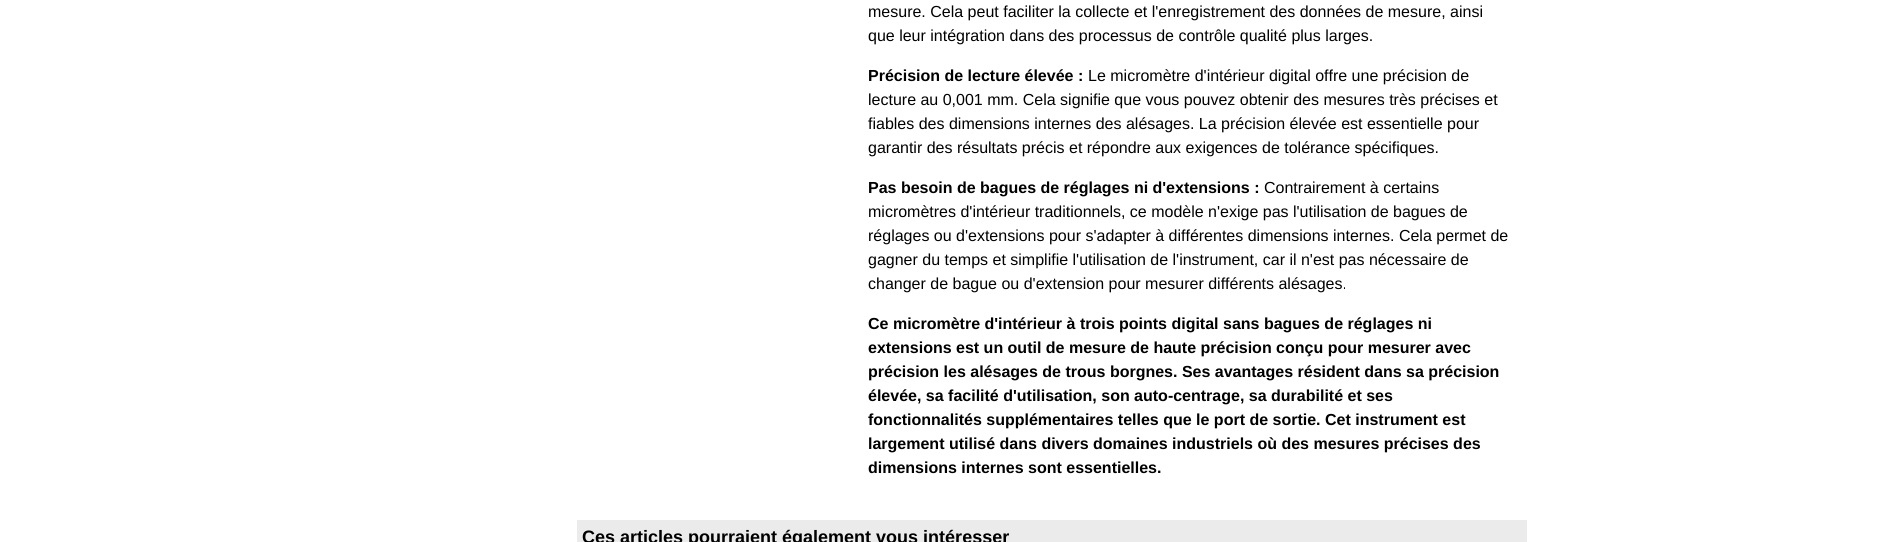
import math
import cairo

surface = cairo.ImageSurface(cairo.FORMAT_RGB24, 1904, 542)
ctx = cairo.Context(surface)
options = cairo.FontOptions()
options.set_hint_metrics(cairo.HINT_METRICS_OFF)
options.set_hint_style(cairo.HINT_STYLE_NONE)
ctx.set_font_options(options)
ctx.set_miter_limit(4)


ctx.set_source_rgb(1, 1, 1)
ctx.paint()
ctx.select_font_face("Liberation Sans")
ctx.set_font_size(16)
ctx.set_source_rgb(0, 0, 0)
ctx.move_to(868, 17)
ctx.show_text("mesure. Cela peut faciliter la collecte et l'enregistrement des données de mesure, ainsi")
ctx.move_to(868, 41)
ctx.show_text("que leur intégration dans des processus de contrôle qualité plus larges.")
ctx.select_font_face("Liberation Sans", cairo.FONT_SLANT_NORMAL, cairo.FONT_WEIGHT_BOLD)
ctx.move_to(868, 81)
ctx.show_text("Précision de lecture élevée :")
ctx.select_font_face("Liberation Sans")
ctx.move_to(1088, 81)
ctx.show_text("Le micromètre d'intérieur digital offre une précision de")
ctx.move_to(868, 105)
ctx.show_text("lecture au 0,001 mm. Cela signifie que vous pouvez obtenir des mesures très précises et")
ctx.move_to(868, 129)
ctx.show_text("fiables des dimensions internes des alésages. La précision élevée est essentielle pour")
ctx.move_to(868, 153)
ctx.show_text("garantir des résultats précis et répondre aux exigences de tolérance spécifiques.")
ctx.select_font_face("Liberation Sans", cairo.FONT_SLANT_NORMAL, cairo.FONT_WEIGHT_BOLD)
ctx.move_to(868, 193)
ctx.show_text("Pas besoin de bagues de réglages ni d'extensions :")
ctx.select_font_face("Liberation Sans")
ctx.move_to(1264, 193)
ctx.show_text("Contrairement à certains")
ctx.move_to(868, 217)
ctx.show_text("micromètres d'intérieur traditionnels, ce modèle n'exige pas l'utilisation de bagues de")
ctx.move_to(868, 241)
ctx.show_text("réglages ou d'extensions pour s'adapter à différentes dimensions internes. Cela permet de")
ctx.move_to(868, 265)
ctx.show_text("gagner du temps et simplifie l'utilisation de l'instrument, car il n'est pas nécessaire de")
ctx.move_to(868, 289)
ctx.show_text("changer de bague ou d'extension pour mesurer différents alésages.")
ctx.select_font_face("Liberation Sans", cairo.FONT_SLANT_NORMAL, cairo.FONT_WEIGHT_BOLD)
ctx.move_to(868, 329)
ctx.show_text("Ce micromètre d'intérieur à trois points digital sans bagues de réglages ni")
ctx.move_to(868, 353)
ctx.show_text("extensions est un outil de mesure de haute précision conçu pour mesurer avec")
ctx.move_to(868, 377)
ctx.show_text("précision les alésages de trous borgnes. Ses avantages résident dans sa précision")
ctx.move_to(868, 401)
ctx.show_text("élevée, sa facilité d'utilisation, son auto-centrage, sa durabilité et ses")
ctx.move_to(868, 425)
ctx.show_text("fonctionnalités supplémentaires telles que le port de sortie. Cet instrument est")
ctx.move_to(868, 449)
ctx.show_text("largement utilisé dans divers domaines industriels où des mesures précises des")
ctx.move_to(868, 473)
ctx.show_text("dimensions internes sont essentielles.")
ctx.set_source_rgb(0.918, 0.918, 0.918)
ctx.rectangle(577, 520, 950, 22)
ctx.fill()
ctx.set_font_size(18)
ctx.set_source_rgb(0, 0, 0)
ctx.move_to(582, 543)
ctx.show_text("Ces articles pourraient également vous intéresser")
surface.write_to_png("page.png")
